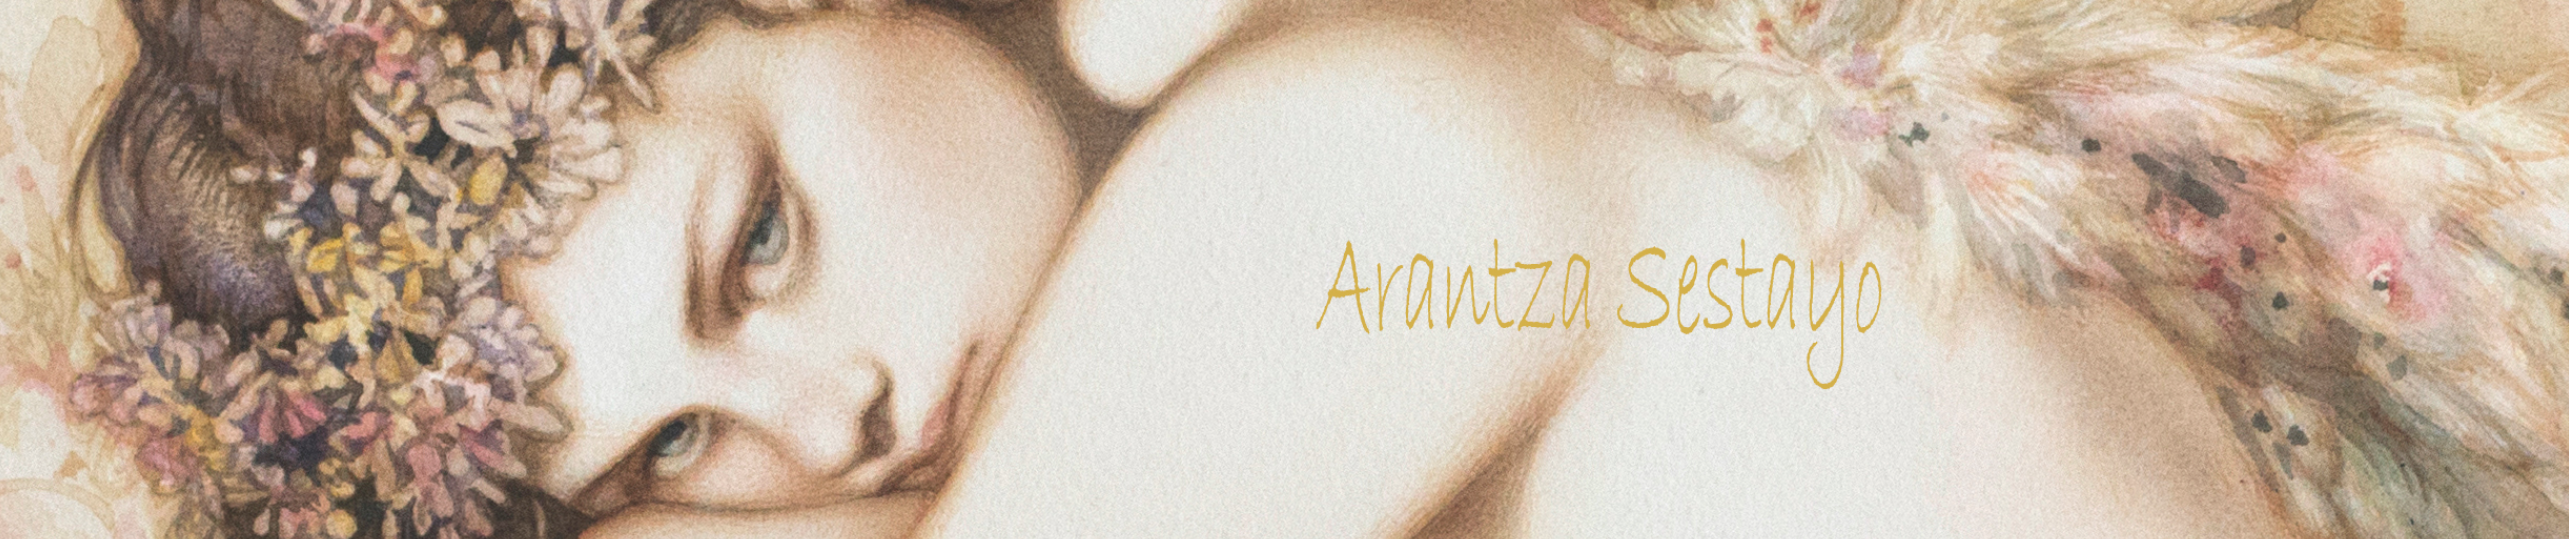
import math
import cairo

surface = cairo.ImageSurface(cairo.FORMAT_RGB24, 2569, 539)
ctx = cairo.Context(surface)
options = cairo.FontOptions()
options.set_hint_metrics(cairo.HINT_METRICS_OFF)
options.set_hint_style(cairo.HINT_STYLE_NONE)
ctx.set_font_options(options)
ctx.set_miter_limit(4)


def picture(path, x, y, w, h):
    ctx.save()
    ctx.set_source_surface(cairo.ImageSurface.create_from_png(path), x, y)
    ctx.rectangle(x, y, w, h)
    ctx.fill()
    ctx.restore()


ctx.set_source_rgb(1, 1, 1)
ctx.paint()
picture("img1.png", 0, 0, 2569, 539)
surface.write_to_png("page.png")
